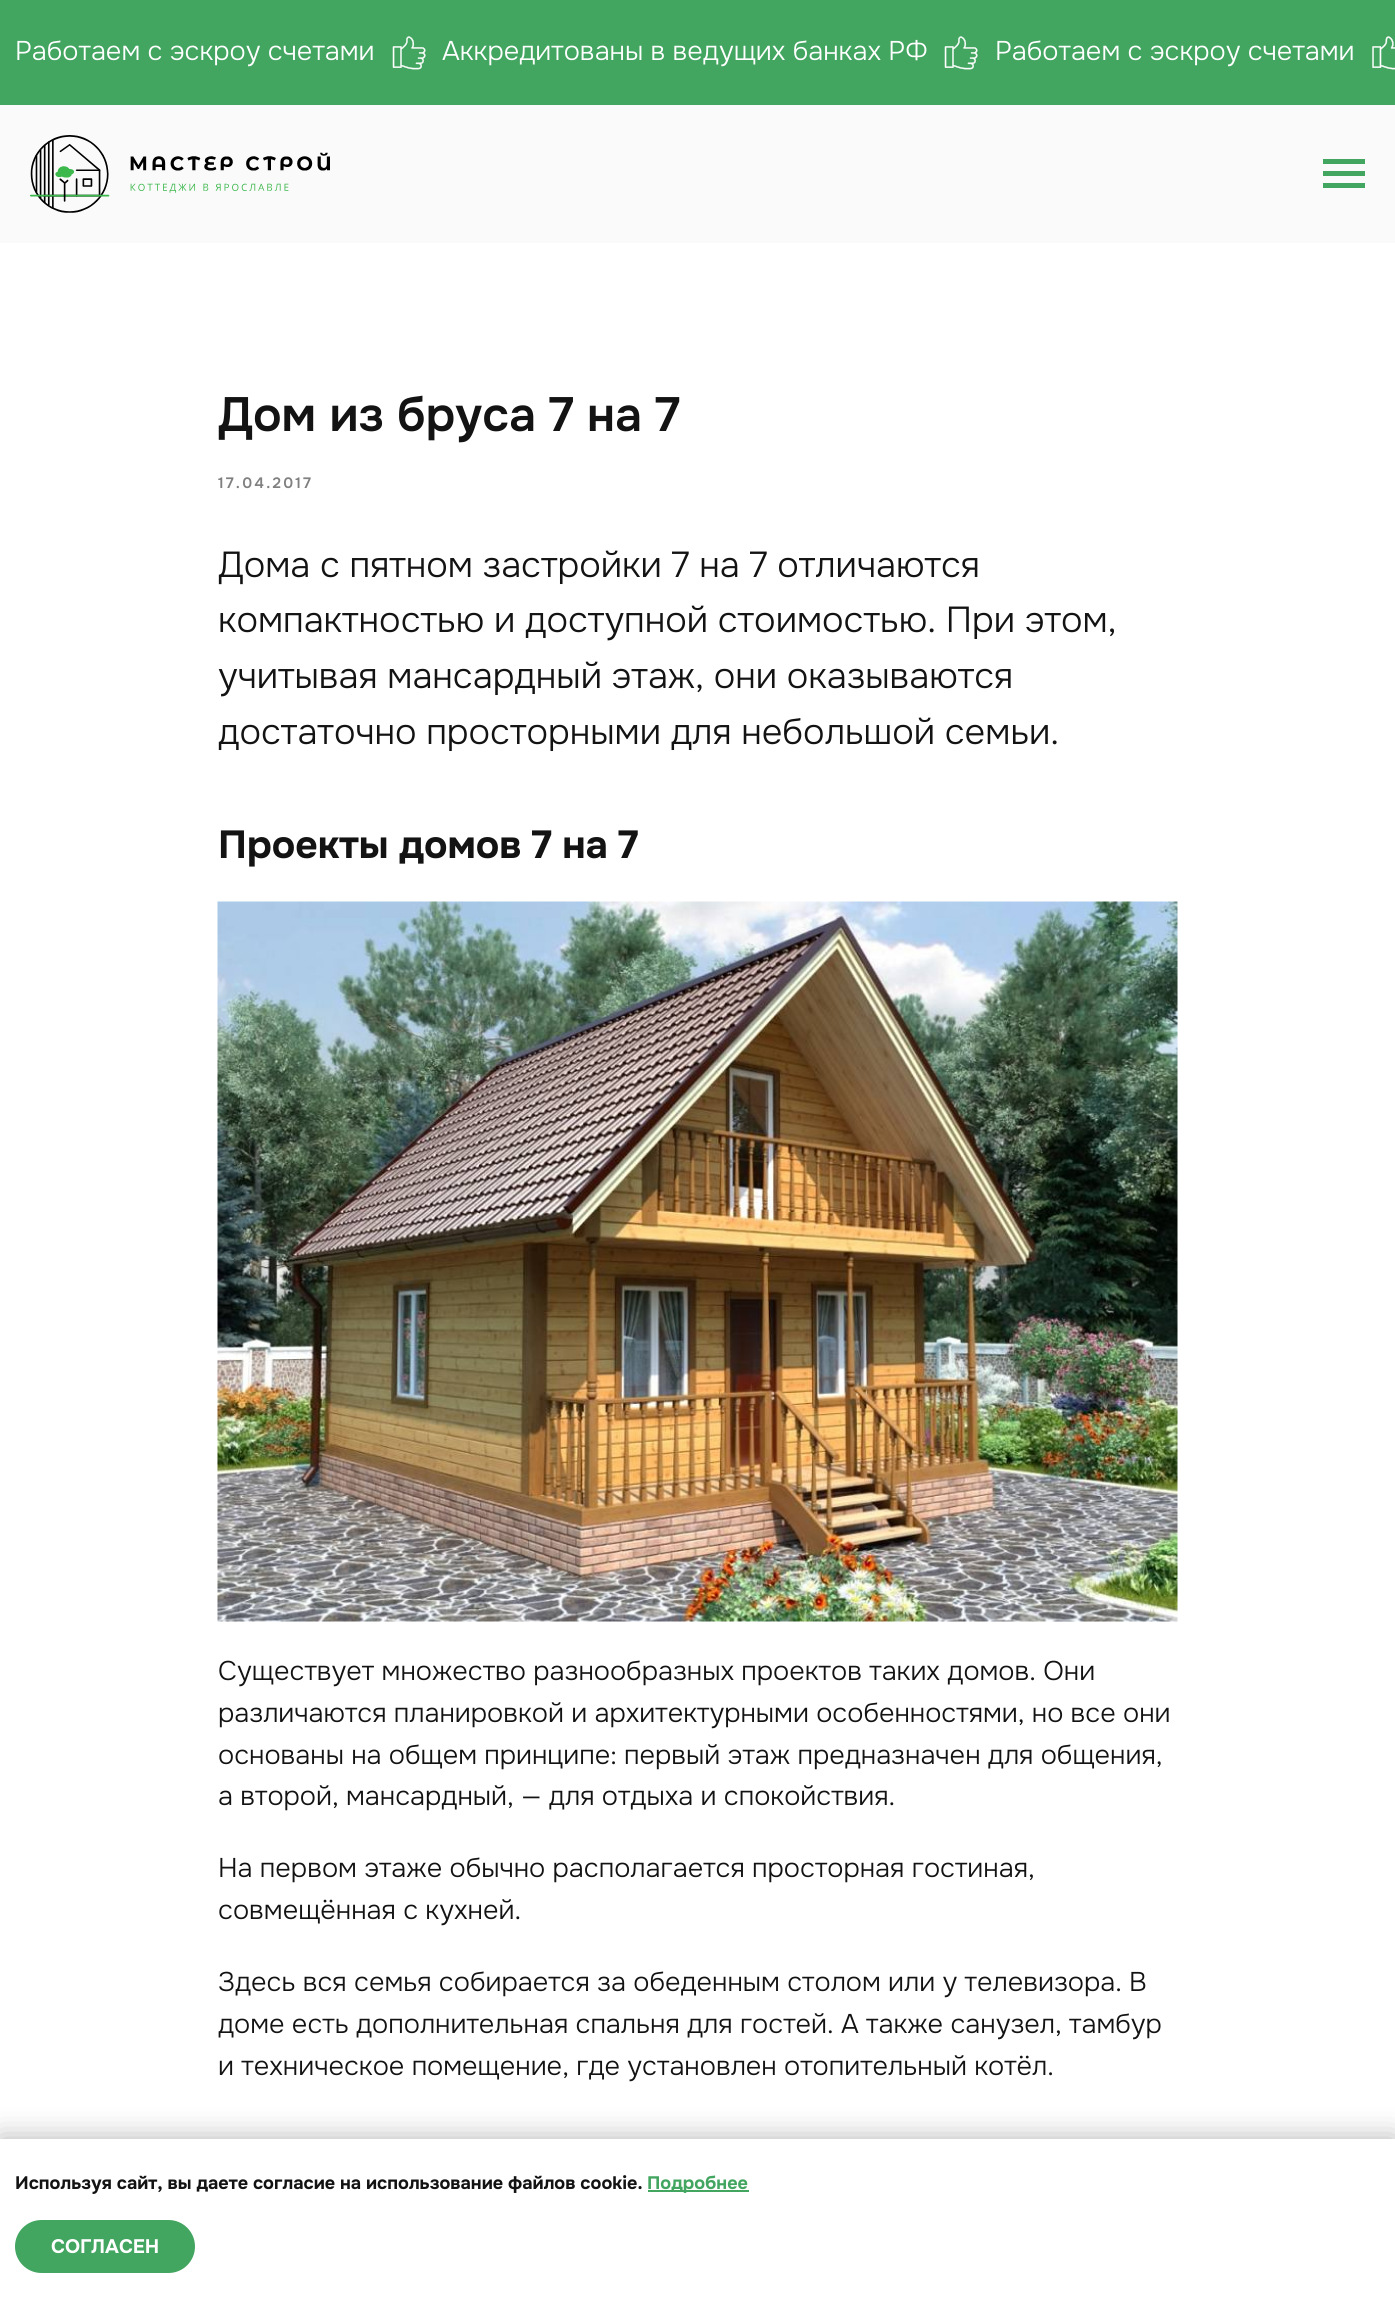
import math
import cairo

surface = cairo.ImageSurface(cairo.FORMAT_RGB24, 1395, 2302)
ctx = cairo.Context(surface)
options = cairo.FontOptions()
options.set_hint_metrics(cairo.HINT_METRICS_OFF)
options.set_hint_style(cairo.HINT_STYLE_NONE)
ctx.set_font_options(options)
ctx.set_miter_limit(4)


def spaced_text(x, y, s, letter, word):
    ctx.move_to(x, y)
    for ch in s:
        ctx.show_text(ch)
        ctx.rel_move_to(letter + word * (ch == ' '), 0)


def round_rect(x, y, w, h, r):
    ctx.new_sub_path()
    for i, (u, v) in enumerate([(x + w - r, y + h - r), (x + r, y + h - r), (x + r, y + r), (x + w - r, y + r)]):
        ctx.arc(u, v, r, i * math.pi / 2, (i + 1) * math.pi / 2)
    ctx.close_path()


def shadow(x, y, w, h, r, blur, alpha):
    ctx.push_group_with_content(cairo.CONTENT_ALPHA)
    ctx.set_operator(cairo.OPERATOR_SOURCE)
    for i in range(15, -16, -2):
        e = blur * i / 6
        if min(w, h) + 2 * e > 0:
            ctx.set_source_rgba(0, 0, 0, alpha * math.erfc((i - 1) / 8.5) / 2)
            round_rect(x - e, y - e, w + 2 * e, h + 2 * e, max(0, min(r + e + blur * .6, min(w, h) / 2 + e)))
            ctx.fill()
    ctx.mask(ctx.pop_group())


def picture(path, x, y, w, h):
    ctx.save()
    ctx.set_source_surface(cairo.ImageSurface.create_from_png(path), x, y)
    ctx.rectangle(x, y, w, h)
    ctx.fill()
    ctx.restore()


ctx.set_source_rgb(1, 1, 1)
ctx.paint()
ctx.set_source_rgb(0.259, 0.647, 0.376)
ctx.rectangle(0, 0, 1395, 105)
ctx.fill()
ctx.select_font_face("Onest Light")
ctx.set_font_size(27)
ctx.set_source_rgb(1, 1, 1)
ctx.move_to(15, 60)
ctx.show_text("Работаем с эскроу счетами")
picture("img1.png", 392, 36, 34, 34)
ctx.move_to(442, 60)
ctx.show_text("Аккредитованы в ведущих банках РФ")
picture("img1.png", 944, 36, 34, 34)
ctx.move_to(995, 60)
ctx.show_text("Работаем с эскроу счетами")
picture("img2.png", 1372, 36, 23, 34)
ctx.set_source_rgb(0.98, 0.98, 0.98)
ctx.rectangle(0, 105, 1395, 138)
ctx.fill()
picture("img3.png", 30, 135, 300, 78)
ctx.set_source_rgb(0.259, 0.647, 0.376)
ctx.rectangle(1323, 159, 42, 5)
ctx.fill()
ctx.rectangle(1323, 171, 42, 5)
ctx.fill()
ctx.rectangle(1323, 183, 42, 5)
ctx.fill()
ctx.select_font_face("Onest SemiBold")
ctx.set_font_size(48)
ctx.set_source_rgb(0.075, 0.075, 0.075)
ctx.move_to(218, 431)
ctx.show_text("Дом из бруса 7 на 7")
ctx.set_font_size(15)
ctx.set_source_rgb(0.502, 0.502, 0.502)
spaced_text(218, 488, "17.04.2017", 2.25, 0)
ctx.select_font_face("Onest Light")
ctx.set_font_size(36)
ctx.set_source_rgb(0.075, 0.075, 0.075)
ctx.move_to(218, 577)
ctx.show_text("Дома с пятном застройки 7 на 7 отличаются")
ctx.move_to(218, 632)
ctx.show_text("компактностью и доступной стоимостью. При этом,")
ctx.move_to(218, 688)
ctx.show_text("учитывая мансардный этаж, они оказываются")
ctx.move_to(218, 744)
ctx.show_text("достаточно просторными для небольшой семьи.")
ctx.select_font_face("Onest", cairo.FONT_SLANT_NORMAL, cairo.FONT_WEIGHT_BOLD)
ctx.set_font_size(39)
ctx.move_to(218, 858)
ctx.show_text("Проекты домов 7 на 7")
picture("img4.png", 217, 901, 961, 721)
ctx.select_font_face("Onest Light")
ctx.set_font_size(27)
ctx.move_to(218, 1680)
ctx.show_text("Существует множество разнообразных проектов таких домов. Они")
ctx.move_to(218, 1722)
ctx.show_text("различаются планировкой и архитектурными особенностями, но все они")
ctx.move_to(218, 1764)
ctx.show_text("основаны на общем принципе: первый этаж предназначен для общения,")
ctx.move_to(218, 1805)
ctx.show_text("а второй, мансардный, — для отдыха и спокойствия.")
ctx.move_to(218, 1877)
ctx.show_text("На первом этаже обычно располагается просторная гостиная,")
ctx.move_to(218, 1919)
ctx.show_text("совмещённая с кухней.")
ctx.move_to(218, 1991)
ctx.show_text("Здесь вся семья собирается за обеденным столом или у телевизора. В")
ctx.move_to(218, 2033)
ctx.show_text("доме есть дополнительная спальня для гостей. А также санузел, тамбур")
ctx.move_to(218, 2075)
ctx.show_text("и техническое помещение, где установлен отопительный котёл.")
ctx.set_source_rgb(0, 0, 0)
shadow(0, 2139, 1395, 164, 0, 15, 0.3)
ctx.set_source_rgb(1, 1, 1)
ctx.rectangle(0, 2139, 1395, 163)
ctx.fill()
ctx.select_font_face("Onest", cairo.FONT_SLANT_NORMAL, cairo.FONT_WEIGHT_BOLD)
ctx.set_font_size(18)
ctx.set_source_rgb(0.075, 0.075, 0.075)
ctx.move_to(15, 2189)
ctx.show_text("Используя сайт, вы даете согласие на использование файлов cookie.")
ctx.set_source_rgb(0.259, 0.647, 0.376)
ctx.rectangle(648, 2190, 101, 2)
ctx.fill()
ctx.move_to(647, 2189)
ctx.show_text("Подробнее")
round_rect(15, 2220, 180, 53, 26.5)
ctx.fill()
ctx.set_font_size(19.5)
ctx.set_source_rgb(1, 1, 1)
ctx.move_to(51, 2253)
ctx.show_text("СОГЛАСЕН")
surface.write_to_png("page.png")
